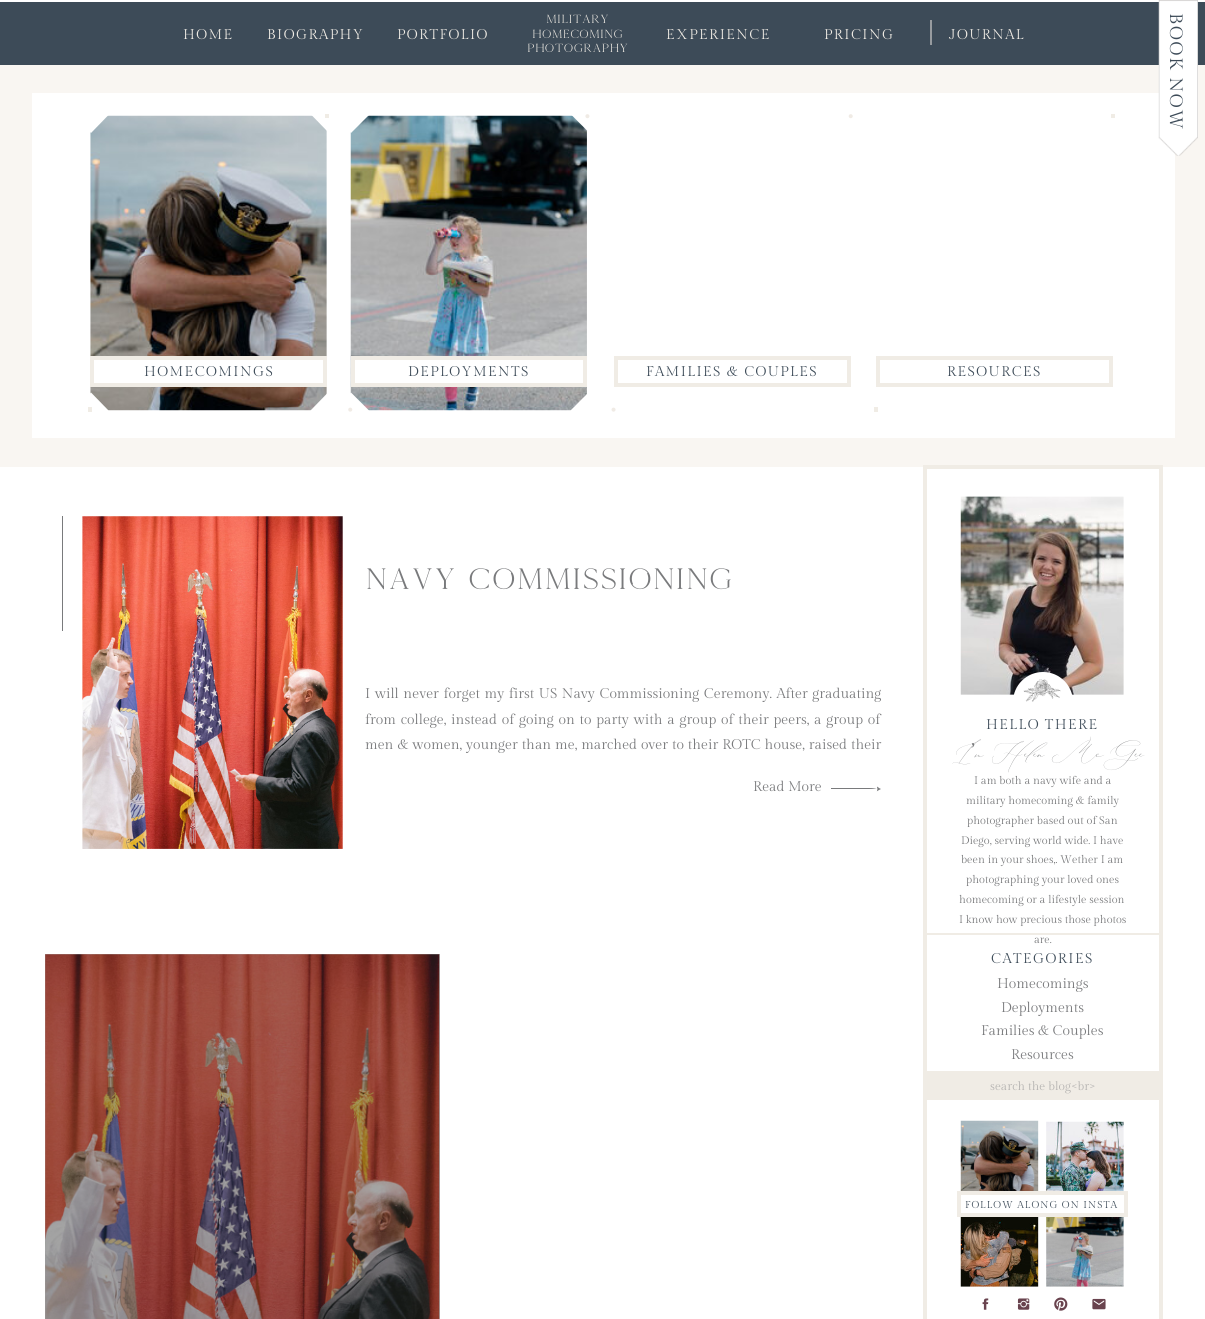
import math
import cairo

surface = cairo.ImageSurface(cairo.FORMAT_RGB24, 1205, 1319)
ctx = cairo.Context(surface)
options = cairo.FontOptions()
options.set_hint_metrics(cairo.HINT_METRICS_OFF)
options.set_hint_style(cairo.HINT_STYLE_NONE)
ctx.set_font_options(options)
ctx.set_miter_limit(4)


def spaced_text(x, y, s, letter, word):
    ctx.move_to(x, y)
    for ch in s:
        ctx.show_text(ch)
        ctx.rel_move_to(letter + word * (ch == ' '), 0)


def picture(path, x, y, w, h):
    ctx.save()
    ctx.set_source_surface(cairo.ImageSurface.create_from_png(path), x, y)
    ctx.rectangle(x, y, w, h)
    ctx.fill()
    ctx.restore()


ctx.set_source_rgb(1, 1, 1)
ctx.paint()
ctx.set_source_rgb(0.651, 0.651, 0.651)
ctx.rectangle(45, 954, 395, 365)
ctx.fill()
ctx.set_source_rgb(0.239, 0.294, 0.345)
ctx.rectangle(0, 2, 1205, 63)
ctx.fill()
ctx.select_font_face("Gilda Display")
ctx.set_font_size(14.05)
ctx.set_source_rgb(0.941, 0.922, 0.898)
spaced_text(183, 39, "HOME", 1.4, 0)
spaced_text(267, 39, "BIOGRAPHY", 1.4, 0)
spaced_text(397, 39, "PORTFOLIO", 1.4, 0)
ctx.select_font_face("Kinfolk")
ctx.set_font_size(12)
ctx.move_to(546, 23)
ctx.show_text("Military")
ctx.move_to(532, 38)
ctx.show_text("Homecoming")
ctx.move_to(527, 52)
ctx.show_text("photography")
ctx.select_font_face("Gilda Display")
ctx.set_font_size(14.05)
spaced_text(666, 39, "EXPERIENCE", 1.4, 0)
spaced_text(824, 39, "PRICING", 1.4, 0)
ctx.set_source_rgb(0.592, 0.608, 0.624)
ctx.rectangle(930, 20, 2, 25)
ctx.fill()
ctx.set_source_rgb(0.941, 0.922, 0.898)
spaced_text(949, 39, "JOURNAL", 1.4, 0)
ctx.set_source_rgb(0.973, 0.961, 0.949)
ctx.rectangle(0, 65, 1205, 402)
ctx.fill()
ctx.set_source_rgb(1, 1, 1)
ctx.rectangle(32, 93, 1143, 345)
ctx.fill()
picture("img1.png", 1158, 0, 40, 156)
ctx.set_font_size(18)
ctx.set_source_rgb(0.239, 0.294, 0.345)
ctx.save()
ctx.translate(1170, 13)
ctx.rotate(90 * math.pi / 180)
spaced_text(0, 0, "BOOK NOW", 1.75, 0)
ctx.restore()
picture("img4.png", 90, 115, 237, 296)
ctx.set_source_rgb(1, 1, 1)
ctx.new_path()
ctx.move_to(91, 97.5)
ctx.line_to(108.5, 115)
ctx.line_to(91, 133)
ctx.line_to(73, 115)
ctx.close_path()
ctx.fill()
picture("img5.png", 350, 115, 237, 296)
ctx.new_path()
ctx.move_to(351, 97.5)
ctx.line_to(369, 115)
ctx.line_to(351, 133)
ctx.line_to(333.5, 115)
ctx.close_path()
ctx.fill()
ctx.new_path()
ctx.move_to(328, 96.5)
ctx.line_to(346, 114)
ctx.line_to(328, 132)
ctx.line_to(310.5, 114)
ctx.close_path()
ctx.fill()
ctx.new_path()
ctx.move_to(588.5, 96.5)
ctx.line_to(606, 114)
ctx.line_to(588.5, 132)
ctx.line_to(570.5, 114)
ctx.close_path()
ctx.fill()
ctx.set_source_rgb(0.941, 0.922, 0.898)
ctx.rectangle(325, 114, 4, 4)
ctx.fill()
picture("img2.png", 585, 114, 5, 5)
picture("img3.png", 848, 114, 5, 5)
ctx.rectangle(1111, 114, 4, 4)
ctx.fill()
ctx.set_source_rgb(1, 1, 1)
ctx.rectangle(92, 358, 233, 27)
ctx.fill_preserve()
ctx.set_source_rgb(0.941, 0.922, 0.898)
ctx.set_line_width(4)
ctx.stroke()
ctx.set_source_rgb(1, 1, 1)
ctx.rectangle(353, 358, 232, 27)
ctx.fill_preserve()
ctx.set_source_rgb(0.941, 0.922, 0.898)
ctx.stroke()
ctx.rectangle(616, 358, 233, 27)
ctx.stroke()
ctx.rectangle(878, 358, 233, 27)
ctx.stroke()
ctx.set_font_size(14.05)
ctx.set_source_rgb(0.239, 0.294, 0.345)
spaced_text(144, 376, "HOMECOMINGS", 1.4, 0)
spaced_text(408, 376, "DEPLOYMENTS", 1.4, 0)
spaced_text(646, 376, "FAMILIES & COUPLES", 1.4, 0)
spaced_text(947, 376, "RESOURCES", 1.4, 0)
ctx.set_source_rgb(1, 1, 1)
ctx.new_path()
ctx.move_to(91, 392.5)
ctx.line_to(108.5, 410.5)
ctx.line_to(91, 428.5)
ctx.line_to(73, 410.5)
ctx.close_path()
ctx.fill()
ctx.new_path()
ctx.move_to(351, 392.5)
ctx.line_to(369, 410.5)
ctx.line_to(351, 428.5)
ctx.line_to(333.5, 410.5)
ctx.close_path()
ctx.fill()
ctx.new_path()
ctx.move_to(328, 392.5)
ctx.line_to(346, 410.5)
ctx.line_to(328, 428.5)
ctx.line_to(310.5, 410.5)
ctx.close_path()
ctx.fill()
ctx.new_path()
ctx.move_to(588.5, 392.5)
ctx.line_to(606, 410.5)
ctx.line_to(588.5, 428.5)
ctx.line_to(570.5, 410.5)
ctx.close_path()
ctx.fill()
ctx.set_source_rgb(0.941, 0.922, 0.898)
ctx.rectangle(88, 407, 4, 5)
ctx.fill()
picture("img6.png", 348, 407, 5, 5)
picture("img7.png", 611, 407, 5, 5)
ctx.rectangle(874, 407, 4, 5)
ctx.fill()
ctx.set_source_rgb(0.475, 0.478, 0.486)
ctx.rectangle(62, 516, 1, 115)
ctx.fill()
picture("img8.png", 82, 516, 261, 333)
ctx.select_font_face("Kinfolk")
ctx.set_font_size(30.1)
ctx.move_to(365, 589)
ctx.show_text("Navy Commissioning")
ctx.select_font_face("Gilda Display")
ctx.set_font_size(14.05)
spaced_text(365, 698, "I will never forget my first US Navy Commissioning Ceremony. After graduating", 0, 1)
spaced_text(365, 724, "from college, instead of going on to party with a group of their peers, a group of", 0, 1.25)
spaced_text(365, 749, "men & women, younger than me, marched over to their ROTC house, raised their", 0, 0.4)
ctx.move_to(753, 791)
ctx.show_text("Read More")
ctx.new_path()
ctx.move_to(877, 787)
ctx.curve_to(878, 791, 878, 788, 869, 788)
ctx.line_to(831, 788)
ctx.line_to(831, 789)
ctx.line_to(877, 789)
ctx.curve_to(878, 789, 877, 790, 877, 791)
ctx.curve_to(876, 792, 879, 790, 879, 790)
ctx.line_to(881, 789)
ctx.line_to(879, 788)
ctx.curve_to(879, 788, 877, 786, 877, 787)
ctx.close_path()
ctx.fill()
picture("img9.png", 45, 954, 395, 365)
ctx.rectangle(925, 467, 236, 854)
ctx.set_source_rgb(0.941, 0.922, 0.898)
ctx.stroke()
picture("img10.png", 960, 496, 164, 199)
ctx.set_source_rgb(1, 1, 1)
ctx.arc(1043, 702, 30, 0, 2 * math.pi)
ctx.fill()
picture("img11.png", 1023, 679, 38, 23)
ctx.set_source_rgb(0.239, 0.294, 0.345)
spaced_text(986, 729, "HELLO THERE", 1.4, 0)
ctx.select_font_face("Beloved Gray")
ctx.set_font_size(18)
ctx.set_source_rgb(0.475, 0.478, 0.486)
ctx.move_to(953, 755)
ctx.show_text("I")
ctx.select_font_face("Liberation Serif")
ctx.move_to(970, 755)
ctx.show_text("’")
ctx.select_font_face("Beloved Gray")
ctx.move_to(976, 755)
ctx.show_text("m Helen McGee")
ctx.select_font_face("Gilda Display")
ctx.set_font_size(11)
ctx.move_to(974, 784)
ctx.show_text("I am both a navy wife and a")
ctx.move_to(966, 804)
ctx.show_text("military homecoming & family")
ctx.move_to(967, 824)
ctx.show_text("photographer based out of San")
ctx.move_to(961, 844)
ctx.show_text("Diego, serving world wide. I have")
ctx.move_to(961, 863)
ctx.show_text("been in your shoes,. Wether I am")
ctx.move_to(966, 883)
ctx.show_text("photographing your loved ones")
ctx.move_to(959, 903)
ctx.show_text("homecoming or a lifestyle session")
ctx.move_to(959, 923)
ctx.show_text("I know how precious those photos")
ctx.move_to(1034, 943)
ctx.show_text("are.")
ctx.set_source_rgb(0.941, 0.922, 0.898)
ctx.rectangle(923, 933, 240, 2)
ctx.fill()
ctx.set_font_size(14.05)
ctx.set_source_rgb(0.239, 0.294, 0.345)
spaced_text(991, 963, "CATEGORIES", 1.4, 0)
ctx.set_source_rgb(0.475, 0.478, 0.486)
ctx.move_to(997, 988)
ctx.show_text("Homecomings")
ctx.move_to(1001, 1012)
ctx.show_text("Deployments")
ctx.move_to(981, 1035)
ctx.show_text("Families & Couples")
ctx.move_to(1011, 1059)
ctx.show_text("Resources")
ctx.set_source_rgb(0.941, 0.922, 0.898)
ctx.rectangle(927, 1071, 232, 29)
ctx.fill()
ctx.set_font_size(12)
ctx.set_source_rgb(0.71, 0.702, 0.694)
ctx.move_to(990, 1090)
ctx.show_text("search the blog<br>")
picture("img12.png", 960, 1120, 79, 71)
picture("img13.png", 1046, 1121, 78, 70)
ctx.rectangle(959, 1193, 167, 22)
ctx.set_source_rgb(0.941, 0.922, 0.898)
ctx.stroke()
ctx.set_font_size(10)
ctx.set_source_rgb(0.239, 0.294, 0.345)
spaced_text(965, 1208, "FOLLOW ALONG ON INSTA", 1, 0)
picture("img14.png", 960, 1217, 79, 70)
picture("img15.png", 1046, 1217, 78, 70)
picture("img16.png", 982, 1298, 7, 12)
picture("img17.png", 1017, 1298, 13, 12)
picture("img18.png", 1054, 1297, 14, 14)
picture("img19.png", 1092, 1298, 14, 12)
surface.write_to_png("page.png")
